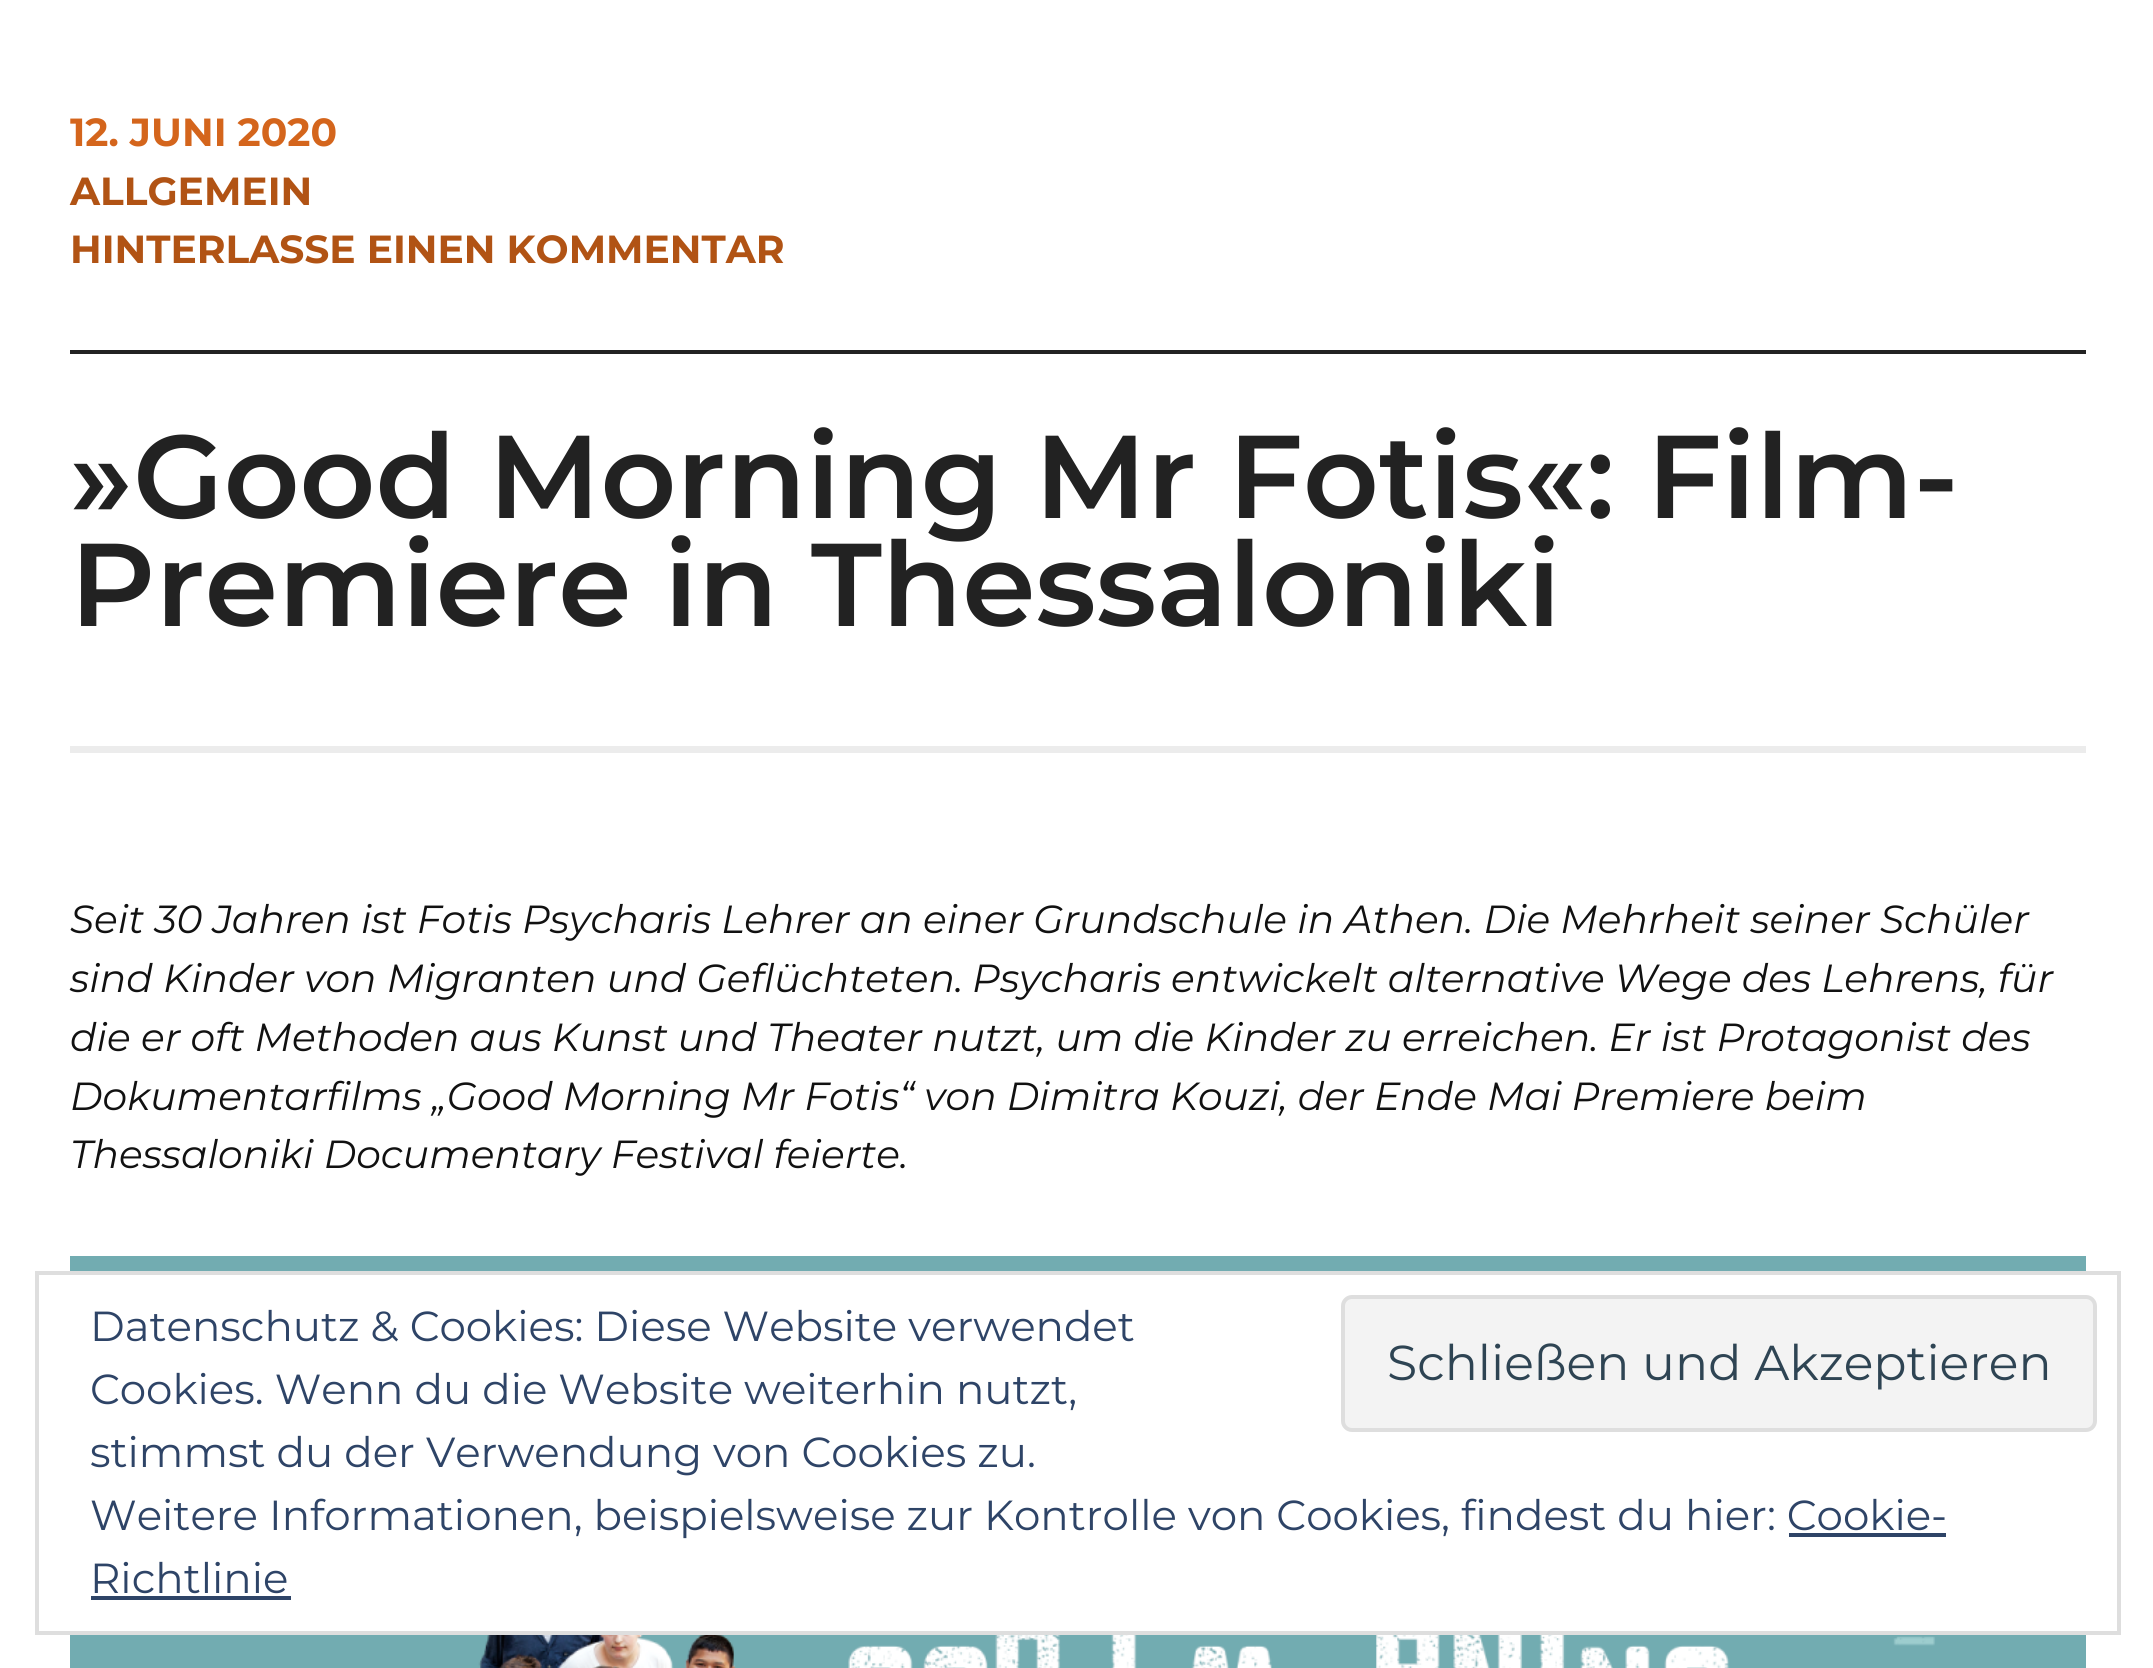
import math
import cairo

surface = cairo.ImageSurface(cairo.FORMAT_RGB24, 2153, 1668)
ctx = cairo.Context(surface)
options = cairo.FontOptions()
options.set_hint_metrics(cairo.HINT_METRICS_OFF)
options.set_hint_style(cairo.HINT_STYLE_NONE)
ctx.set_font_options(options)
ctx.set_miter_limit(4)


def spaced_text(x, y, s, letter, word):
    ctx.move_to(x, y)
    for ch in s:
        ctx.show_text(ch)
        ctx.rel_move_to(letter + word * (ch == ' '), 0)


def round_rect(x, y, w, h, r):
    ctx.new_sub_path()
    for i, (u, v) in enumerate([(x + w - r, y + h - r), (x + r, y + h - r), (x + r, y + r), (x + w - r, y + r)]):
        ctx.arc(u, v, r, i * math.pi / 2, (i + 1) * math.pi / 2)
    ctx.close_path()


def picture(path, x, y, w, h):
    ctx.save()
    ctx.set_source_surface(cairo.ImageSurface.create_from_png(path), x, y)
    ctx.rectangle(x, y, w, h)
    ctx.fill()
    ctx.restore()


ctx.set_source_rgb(1, 1, 1)
ctx.paint()
ctx.set_source_rgb(0.133, 0.133, 0.133)
ctx.rectangle(70, 350, 2016, 4)
ctx.fill()
ctx.select_font_face("Montserrat", cairo.FONT_SLANT_NORMAL, cairo.FONT_WEIGHT_BOLD)
ctx.set_font_size(39.2)
ctx.set_source_rgb(0.831, 0.396, 0.11)
ctx.move_to(70, 146)
ctx.show_text("12. JUNI 2020")
ctx.set_source_rgb(0.694, 0.325, 0.082)
ctx.move_to(70, 205)
ctx.show_text("ALLGEMEIN")
ctx.move_to(70, 263)
ctx.show_text("HINTERLASSE EINEN KOMMENTAR")
ctx.set_source_rgb(0.922, 0.922, 0.922)
ctx.rectangle(70, 746, 2016, 7)
ctx.fill()
ctx.select_font_face("Montserrat SemiBold")
ctx.set_font_size(117.6)
ctx.set_source_rgb(0.133, 0.133, 0.133)
spaced_text(70, 518, "»Good Morning Mr Fotis«: Film-", 0, -0.5)
ctx.move_to(70, 626)
ctx.show_text("Premiere in Thessaloniki")
ctx.select_font_face("Montserrat", cairo.FONT_SLANT_ITALIC)
ctx.set_font_size(39.2)
ctx.set_source_rgb(0.067, 0.067, 0.067)
spaced_text(70, 933, "Seit 30 Jahren ist Fotis Psycharis Lehrer an einer Grundschule in Athen. Die Mehrheit seiner Schüler", 0, -0.1)
ctx.move_to(70, 992)
ctx.show_text("sind Kinder von Migranten und Geflüchteten.")
spaced_text(972, 992, "Psycharis entwickelt alternative Wege des Lehrens, für", 0, -0.25)
spaced_text(70, 1051, "die er oft Methoden aus Kunst und Theater nutzt, um die Kinder zu erreichen. Er ist Protagonist des", 0, -0.1)
spaced_text(70, 1110, "Dokumentarfilms „Good Morning Mr Fotis“ von Dimitra Kouzi, der Ende Mai Premiere beim", 0, -0.2)
ctx.move_to(70, 1168)
ctx.show_text("Thessaloniki Documentary Festival feierte.")
picture("img1.png", 70, 1256, 2016, 412)
ctx.set_source_rgb(1, 1, 1)
ctx.rectangle(70, 1275, 2016, 356)
ctx.fill()
ctx.rectangle(37, 1273, 2082, 360)
ctx.set_source_rgb(0.871, 0.871, 0.871)
ctx.set_line_width(4)
ctx.stroke()
ctx.select_font_face("Montserrat")
ctx.set_font_size(42)
ctx.set_source_rgb(0.18, 0.267, 0.404)
ctx.move_to(90, 1341)
ctx.show_text("Datenschutz & Cookies: Diese Website verwendet")
ctx.move_to(90, 1404)
ctx.show_text("Cookies. Wenn du die Website weiterhin nutzt,")
ctx.set_source_rgb(0.953, 0.953, 0.953)
round_rect(1343, 1297, 752, 133, 9)
ctx.fill_preserve()
ctx.set_source_rgb(0.871, 0.871, 0.871)
ctx.stroke()
ctx.set_font_size(49)
ctx.set_source_rgb(0.18, 0.267, 0.325)
ctx.move_to(1387, 1380)
ctx.show_text("Schließen und Akzeptieren")
ctx.set_font_size(42)
ctx.set_source_rgb(0.18, 0.267, 0.404)
ctx.move_to(90, 1467)
ctx.show_text("stimmst du der Verwendung von Cookies zu.")
ctx.move_to(90, 1530)
ctx.show_text("Weitere Informationen, beispielsweise zur Kontrolle von Cookies, findest du hier: Cookie-")
ctx.move_to(90, 1593)
ctx.show_text("Richtlinie")
ctx.rectangle(1789, 1533, 157, 4)
ctx.fill()
ctx.rectangle(91, 1596, 200, 4)
ctx.fill()
surface.write_to_png("page.png")
